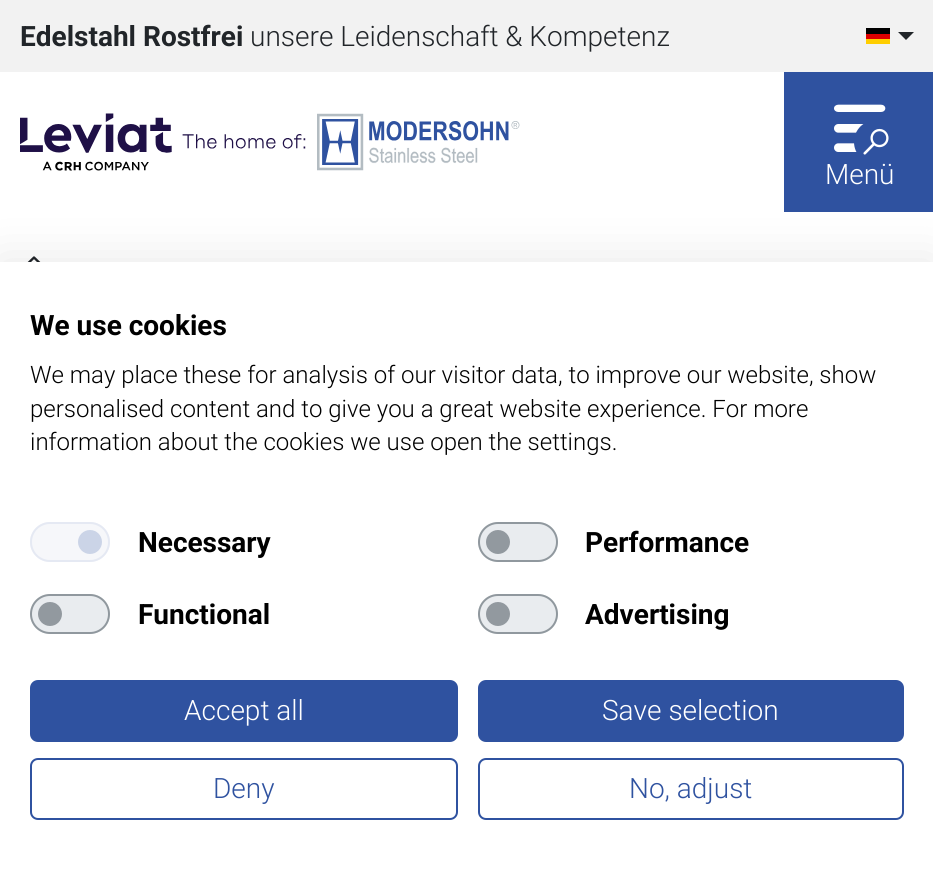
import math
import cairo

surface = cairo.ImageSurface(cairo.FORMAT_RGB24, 933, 873)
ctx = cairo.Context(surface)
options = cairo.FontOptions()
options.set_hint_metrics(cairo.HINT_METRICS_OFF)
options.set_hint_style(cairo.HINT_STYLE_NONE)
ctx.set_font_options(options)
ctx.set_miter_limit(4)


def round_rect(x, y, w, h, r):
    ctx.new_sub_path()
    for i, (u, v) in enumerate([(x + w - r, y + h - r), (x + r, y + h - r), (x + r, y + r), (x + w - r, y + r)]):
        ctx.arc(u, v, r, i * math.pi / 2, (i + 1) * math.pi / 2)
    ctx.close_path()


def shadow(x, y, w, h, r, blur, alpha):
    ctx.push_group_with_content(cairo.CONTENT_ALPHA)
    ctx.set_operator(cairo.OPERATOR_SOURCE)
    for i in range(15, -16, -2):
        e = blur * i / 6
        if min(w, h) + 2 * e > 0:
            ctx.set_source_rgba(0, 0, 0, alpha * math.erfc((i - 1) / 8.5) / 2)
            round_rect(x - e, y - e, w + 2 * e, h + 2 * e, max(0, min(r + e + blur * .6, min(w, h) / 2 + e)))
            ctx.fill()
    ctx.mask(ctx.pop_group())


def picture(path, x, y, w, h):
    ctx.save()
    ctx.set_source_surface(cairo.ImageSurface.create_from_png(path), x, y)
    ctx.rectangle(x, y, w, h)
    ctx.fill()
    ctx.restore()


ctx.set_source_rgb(1, 1, 1)
ctx.paint()
ctx.set_source_rgb(0.949, 0.949, 0.949)
ctx.rectangle(0, 0, 933, 72)
ctx.fill()
ctx.select_font_face("Roboto", cairo.FONT_SLANT_NORMAL, cairo.FONT_WEIGHT_BOLD)
ctx.set_font_size(28)
ctx.set_source_rgb(0.129, 0.145, 0.161)
ctx.move_to(20, 46)
ctx.show_text("Edelstahl Rostfrei")
ctx.select_font_face("Roboto Light")
ctx.move_to(250, 46)
ctx.show_text("unsere Leidenschaft & Kompetenz")
ctx.set_source_rgb(0, 0, 0)
ctx.rectangle(866, 28, 24, 6)
ctx.fill()
ctx.set_source_rgb(0.867, 0, 0)
ctx.rectangle(866, 34, 24, 5)
ctx.fill()
ctx.set_source_rgb(1, 0.808, 0)
ctx.rectangle(866, 39, 24, 5)
ctx.fill()
ctx.set_source_rgb(0.129, 0.145, 0.161)
ctx.new_path()
ctx.move_to(898, 32)
ctx.line_to(914, 32)
ctx.line_to(906, 40)
ctx.close_path()
ctx.fill()
picture("img1.png", 20, 113, 500, 58)
ctx.set_source_rgb(0.184, 0.322, 0.627)
ctx.rectangle(784, 72, 149, 140)
ctx.fill()
picture("img2.png", 834, 104, 52, 48)
ctx.set_source_rgb(1, 1, 1)
ctx.move_to(825, 184)
ctx.show_text("Menü")
ctx.set_source_rgb(0.184, 0.322, 0.627)
ctx.new_path()
ctx.arc(876, 142, 22, 0, 2 * math.pi)
ctx.fill()
picture("img3.png", 863, 128, 26, 27)
picture("img4.png", 27, 256, 14, 6)
ctx.set_source_rgb(0, 0, 0)
shadow(0, 262, 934, 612, 0, 24, 0.1)
ctx.set_source_rgb(1, 1, 1)
ctx.rectangle(0, 262, 933, 611)
ctx.fill()
ctx.select_font_face("Roboto", cairo.FONT_SLANT_NORMAL, cairo.FONT_WEIGHT_BOLD)
ctx.set_source_rgb(0, 0, 0)
ctx.move_to(30, 335)
ctx.show_text("We use cookies")
ctx.select_font_face("Roboto Light")
ctx.set_font_size(24)
ctx.move_to(30, 383)
ctx.show_text("We may place these for analysis of our visitor data, to improve our website, show")
ctx.move_to(30, 417)
ctx.show_text("personalised content and to give you a great website experience. For more")
ctx.move_to(30, 450)
ctx.show_text("information about the cookies we use open the settings.")
ctx.set_source_rgb(0.961, 0.965, 0.98)
round_rect(30, 522, 80, 40, 20)
ctx.fill()
ctx.set_source_rgb(0.796, 0.831, 0.906)
ctx.arc(90, 542, 12, 0, 2 * math.pi)
ctx.fill()
round_rect(31, 523, 78, 38, 19)
ctx.set_source_rgb(0.898, 0.914, 0.953)
ctx.stroke()
ctx.select_font_face("Roboto", cairo.FONT_SLANT_NORMAL, cairo.FONT_WEIGHT_BOLD)
ctx.set_font_size(28)
ctx.set_source_rgb(0, 0, 0)
ctx.move_to(138, 552)
ctx.show_text("Necessary")
ctx.set_source_rgb(0.914, 0.925, 0.937)
round_rect(478, 522, 80, 40, 20)
ctx.fill()
ctx.set_source_rgb(0.573, 0.6, 0.624)
ctx.arc(498, 542, 12, 0, 2 * math.pi)
ctx.fill()
round_rect(479, 523, 78, 38, 19)
ctx.set_source_rgba(0.424, 0.459, 0.49, 0.7)
ctx.stroke()
ctx.set_source_rgb(0, 0, 0)
ctx.move_to(585, 552)
ctx.show_text("Performance")
ctx.set_source_rgb(0.914, 0.925, 0.937)
round_rect(30, 594, 80, 40, 20)
ctx.fill()
ctx.set_source_rgb(0.573, 0.6, 0.624)
ctx.arc(50, 614, 12, 0, 2 * math.pi)
ctx.fill()
round_rect(31, 595, 78, 38, 19)
ctx.set_source_rgba(0.424, 0.459, 0.49, 0.7)
ctx.stroke()
ctx.set_source_rgb(0, 0, 0)
ctx.move_to(138, 624)
ctx.show_text("Functional")
ctx.set_source_rgb(0.914, 0.925, 0.937)
round_rect(478, 594, 80, 40, 20)
ctx.fill()
ctx.set_source_rgb(0.573, 0.6, 0.624)
ctx.arc(498, 614, 12, 0, 2 * math.pi)
ctx.fill()
round_rect(479, 595, 78, 38, 19)
ctx.set_source_rgba(0.424, 0.459, 0.49, 0.7)
ctx.stroke()
ctx.set_source_rgb(0, 0, 0)
ctx.move_to(585, 624)
ctx.show_text("Advertising")
ctx.set_source_rgb(0.184, 0.322, 0.627)
round_rect(31, 681, 426, 60, 7)
ctx.fill_preserve()
ctx.stroke()
ctx.select_font_face("Roboto Light")
ctx.set_source_rgb(1, 1, 1)
ctx.move_to(184, 720)
ctx.show_text("Accept all")
ctx.set_source_rgb(0.184, 0.322, 0.627)
round_rect(479, 681, 424, 60, 7)
ctx.fill_preserve()
ctx.stroke()
ctx.set_source_rgb(1, 1, 1)
ctx.move_to(602, 720)
ctx.show_text("Save selection")
round_rect(31, 759, 426, 60, 7)
ctx.set_source_rgb(0.184, 0.322, 0.627)
ctx.stroke()
ctx.move_to(213, 798)
ctx.show_text("Deny")
round_rect(479, 759, 424, 60, 7)
ctx.stroke()
ctx.move_to(629, 798)
ctx.show_text("No, adjust")
surface.write_to_png("page.png")
